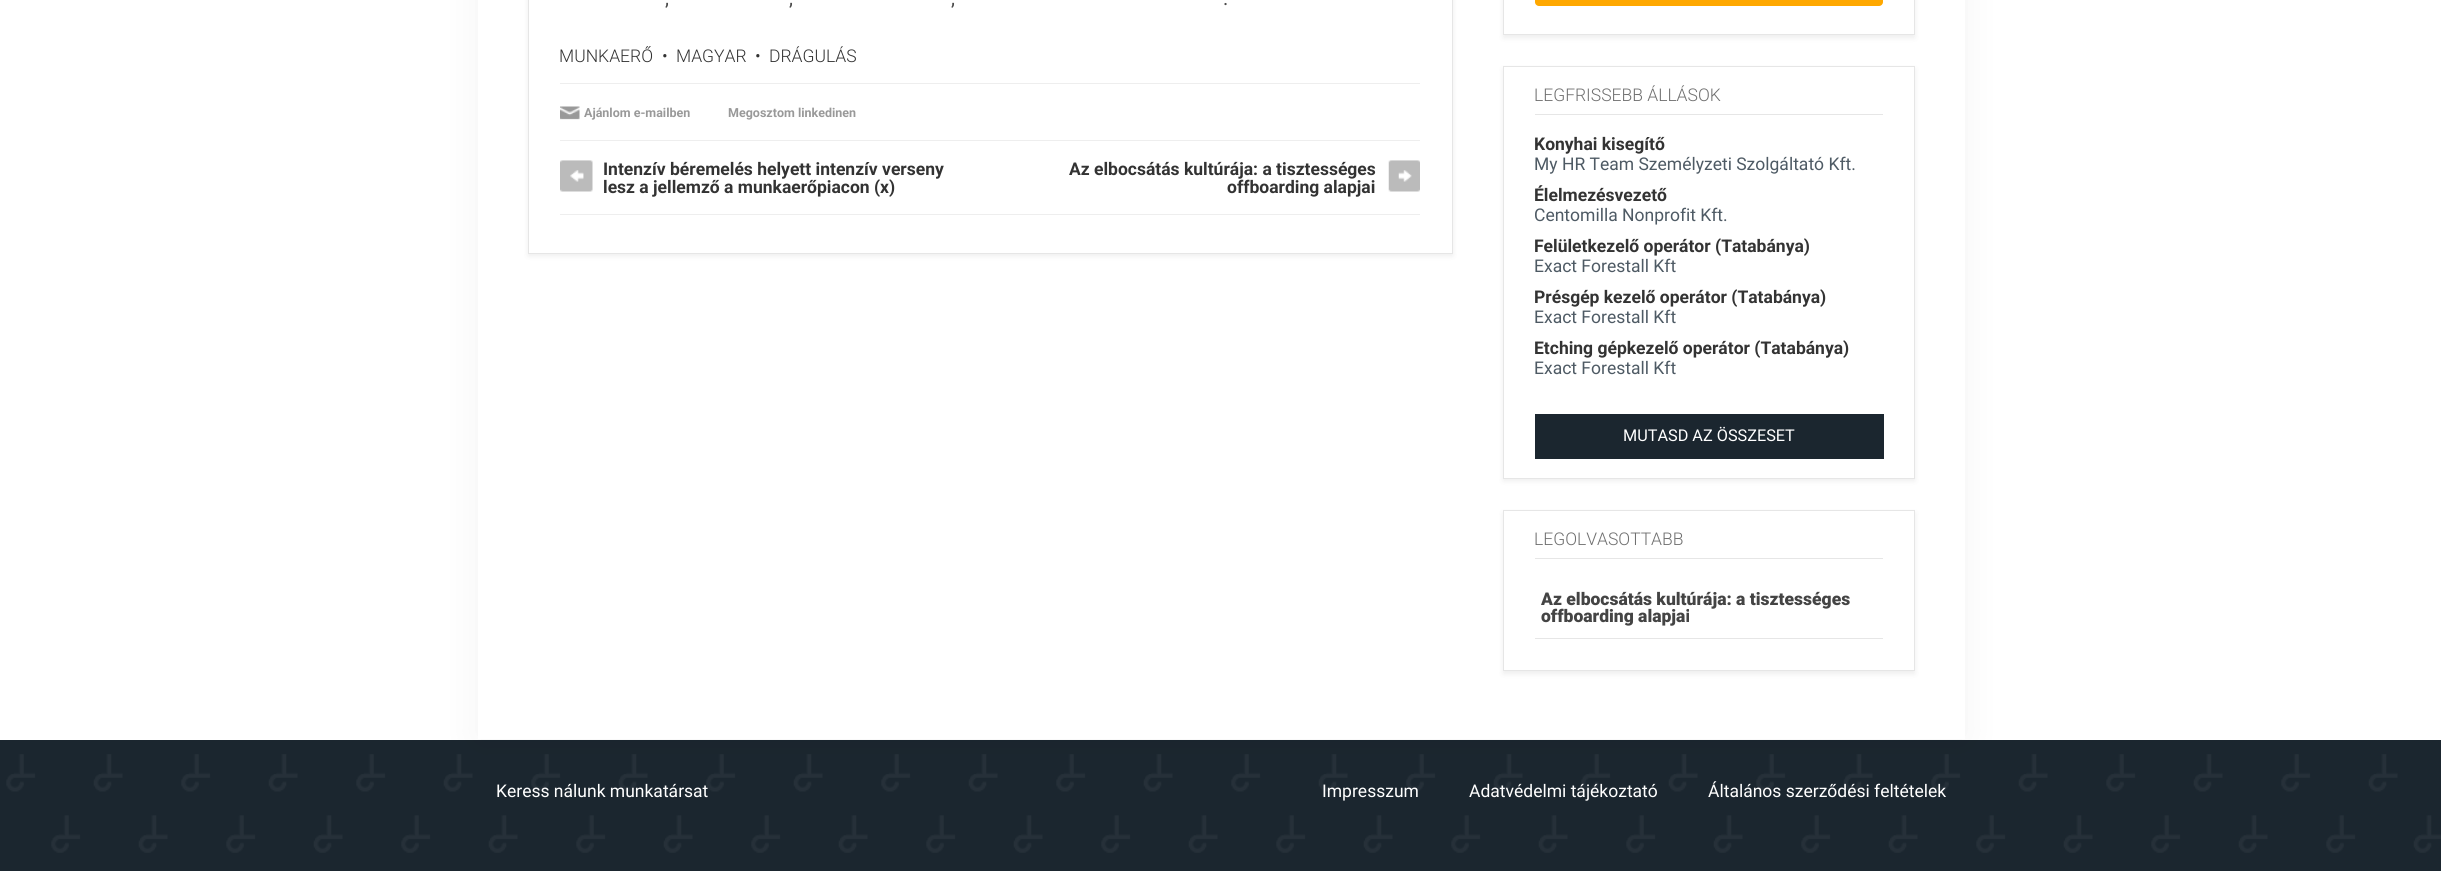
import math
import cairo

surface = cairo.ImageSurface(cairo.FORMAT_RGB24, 2441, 878)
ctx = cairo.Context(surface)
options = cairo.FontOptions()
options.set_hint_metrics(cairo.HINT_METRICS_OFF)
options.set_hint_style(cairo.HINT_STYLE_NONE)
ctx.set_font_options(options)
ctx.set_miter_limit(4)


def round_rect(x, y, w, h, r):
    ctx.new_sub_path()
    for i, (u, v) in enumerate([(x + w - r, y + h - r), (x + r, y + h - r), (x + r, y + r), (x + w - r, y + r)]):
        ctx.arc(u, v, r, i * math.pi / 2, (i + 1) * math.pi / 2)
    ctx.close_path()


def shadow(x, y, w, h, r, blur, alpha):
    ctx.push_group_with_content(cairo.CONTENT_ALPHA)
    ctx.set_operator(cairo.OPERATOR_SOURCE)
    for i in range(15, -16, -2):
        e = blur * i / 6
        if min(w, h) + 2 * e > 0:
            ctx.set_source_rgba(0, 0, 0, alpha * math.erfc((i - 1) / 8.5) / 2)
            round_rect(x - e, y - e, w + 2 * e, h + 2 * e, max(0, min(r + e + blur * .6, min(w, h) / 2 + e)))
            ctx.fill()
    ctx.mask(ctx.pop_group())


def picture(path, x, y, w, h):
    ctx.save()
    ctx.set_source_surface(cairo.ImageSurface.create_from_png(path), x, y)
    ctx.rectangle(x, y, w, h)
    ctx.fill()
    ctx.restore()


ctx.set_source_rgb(1, 1, 1)
ctx.paint()
ctx.set_source_rgb(0.106, 0.149, 0.184)
ctx.rectangle(0, 740, 2441, 131)
ctx.fill()
picture("img4.png", 6, 754, 2435, 99)
ctx.set_source_rgb(0, 0, 0)
shadow(478, -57, 1487, 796, 0, 19, 0.05)
ctx.set_source_rgb(1, 1, 1)
ctx.rectangle(478, 0, 1487, 739)
ctx.fill()
ctx.save()
ctx.set_fill_rule(cairo.FILL_RULE_EVEN_ODD)
ctx.new_path()
ctx.move_to(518, 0)
ctx.line_to(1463, 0)
ctx.line_to(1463, 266)
ctx.line_to(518, 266)
ctx.close_path()
ctx.move_to(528, -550)
ctx.line_to(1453, -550)
ctx.line_to(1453, 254)
ctx.line_to(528, 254)
ctx.close_path()
ctx.clip()
ctx.set_source_rgb(0, 0, 0)
shadow(528, -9, 925, 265, 0, 3, 0.07)
ctx.restore()
ctx.rectangle(528.5, -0.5, 924, 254)
ctx.set_source_rgb(0.902, 0.902, 0.902)
ctx.set_line_width(1)
ctx.stroke()
ctx.select_font_face("Roboto")
ctx.set_font_size(20)
ctx.set_source_rgb(0.294, 0.294, 0.294)
ctx.move_to(665, 5)
ctx.show_text(",")
ctx.move_to(789, 5)
ctx.show_text(",")
ctx.move_to(951, 5)
ctx.show_text(",")
ctx.move_to(1223, 5)
ctx.show_text(".")
ctx.select_font_face("Roboto Light")
ctx.set_font_size(17.5)
ctx.set_source_rgb(0.2, 0.2, 0.2)
ctx.move_to(559, 62)
ctx.show_text("MUNKAERŐ")
ctx.move_to(662, 62)
ctx.show_text("•")
ctx.move_to(676, 62)
ctx.show_text("MAGYAR")
ctx.move_to(755, 62)
ctx.show_text("•")
ctx.move_to(769, 62)
ctx.show_text("DRÁGULÁS")
ctx.set_source_rgb(0.933, 0.933, 0.933)
ctx.rectangle(560, 83, 860, 1)
ctx.fill()
ctx.rectangle(560, 140, 860, 1)
ctx.fill()
picture("img1.png", 560, 106, 20, 14)
ctx.select_font_face("Roboto", cairo.FONT_SLANT_NORMAL, cairo.FONT_WEIGHT_BOLD)
ctx.set_font_size(12.5)
ctx.set_source_rgb(0.6, 0.6, 0.6)
ctx.move_to(584, 117)
ctx.show_text("Ajánlom e-mailben")
ctx.move_to(728, 117)
ctx.show_text("Megosztom linkedinen")
ctx.set_source_rgb(0.933, 0.933, 0.933)
ctx.rectangle(560, 214, 860, 1)
ctx.fill()
picture("img2.png", 560, 160, 33, 32)
ctx.set_font_size(17.5)
ctx.set_source_rgb(0.2, 0.2, 0.2)
ctx.move_to(603, 175)
ctx.show_text("Intenzív béremelés helyett intenzív verseny")
ctx.move_to(603, 193)
ctx.show_text("lesz a jellemző a munkaerőpiacon (x)")
picture("img3.png", 1388, 160, 32, 32)
ctx.move_to(1069, 175)
ctx.show_text("Az elbocsátás kultúrája: a tisztességes")
ctx.move_to(1227, 193)
ctx.show_text("offboarding alapjai")
ctx.save()
ctx.set_fill_rule(cairo.FILL_RULE_EVEN_ODD)
ctx.new_path()
ctx.move_to(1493, 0)
ctx.line_to(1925, 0)
ctx.line_to(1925, 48)
ctx.line_to(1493, 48)
ctx.close_path()
ctx.move_to(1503, -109)
ctx.line_to(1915, -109)
ctx.line_to(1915, 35)
ctx.line_to(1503, 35)
ctx.close_path()
ctx.clip()
ctx.set_source_rgb(0, 0, 0)
shadow(1503, -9, 412, 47, 0, 3, 0.07)
ctx.restore()
ctx.rectangle(1503.5, -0.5, 411, 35)
ctx.set_source_rgb(0.902, 0.902, 0.902)
ctx.stroke()
ctx.set_source_rgb(1, 0.659, 0)
round_rect(1535, -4, 348, 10, 4)
ctx.fill()
ctx.save()
ctx.set_fill_rule(cairo.FILL_RULE_EVEN_ODD)
ctx.new_path()
ctx.move_to(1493, 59)
ctx.line_to(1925, 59)
ctx.line_to(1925, 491)
ctx.line_to(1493, 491)
ctx.close_path()
ctx.move_to(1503, 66)
ctx.line_to(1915, 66)
ctx.line_to(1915, 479)
ctx.line_to(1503, 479)
ctx.close_path()
ctx.clip()
ctx.set_source_rgb(0, 0, 0)
shadow(1503, 69, 412, 412, 0, 3, 0.07)
ctx.restore()
ctx.rectangle(1503.5, 66.5, 411, 412)
ctx.set_source_rgb(0.902, 0.902, 0.902)
ctx.stroke()
ctx.rectangle(1535, 114, 348, 1)
ctx.fill()
ctx.select_font_face("Roboto Light")
ctx.set_source_rgb(0.439, 0.439, 0.439)
ctx.move_to(1534, 101)
ctx.show_text("LEGFRISSEBB ÁLLÁSOK")
ctx.select_font_face("Roboto", cairo.FONT_SLANT_NORMAL, cairo.FONT_WEIGHT_BOLD)
ctx.set_source_rgb(0.2, 0.2, 0.2)
ctx.move_to(1534, 150)
ctx.show_text("Konyhai kisegítő")
ctx.select_font_face("Roboto")
ctx.set_source_rgb(0.306, 0.353, 0.392)
ctx.move_to(1534, 170)
ctx.show_text("My HR Team Személyzeti Szolgáltató Kft.")
ctx.select_font_face("Roboto", cairo.FONT_SLANT_NORMAL, cairo.FONT_WEIGHT_BOLD)
ctx.set_source_rgb(0.2, 0.2, 0.2)
ctx.move_to(1534, 201)
ctx.show_text("Élelmezésvezető")
ctx.select_font_face("Roboto")
ctx.set_source_rgb(0.306, 0.353, 0.392)
ctx.move_to(1534, 221)
ctx.show_text("Centomilla Nonprofit Kft.")
ctx.select_font_face("Roboto", cairo.FONT_SLANT_NORMAL, cairo.FONT_WEIGHT_BOLD)
ctx.set_source_rgb(0.2, 0.2, 0.2)
ctx.move_to(1534, 252)
ctx.show_text("Felületkezelő operátor (Tatabánya)")
ctx.select_font_face("Roboto")
ctx.set_source_rgb(0.306, 0.353, 0.392)
ctx.move_to(1534, 272)
ctx.show_text("Exact Forestall Kft")
ctx.select_font_face("Roboto", cairo.FONT_SLANT_NORMAL, cairo.FONT_WEIGHT_BOLD)
ctx.set_source_rgb(0.2, 0.2, 0.2)
ctx.move_to(1534, 303)
ctx.show_text("Présgép kezelő operátor (Tatabánya)")
ctx.select_font_face("Roboto")
ctx.set_source_rgb(0.306, 0.353, 0.392)
ctx.move_to(1534, 323)
ctx.show_text("Exact Forestall Kft")
ctx.select_font_face("Roboto", cairo.FONT_SLANT_NORMAL, cairo.FONT_WEIGHT_BOLD)
ctx.set_source_rgb(0.2, 0.2, 0.2)
ctx.move_to(1534, 354)
ctx.show_text("Etching gépkezelő operátor (Tatabánya)")
ctx.select_font_face("Roboto")
ctx.set_source_rgb(0.306, 0.353, 0.392)
ctx.move_to(1534, 374)
ctx.show_text("Exact Forestall Kft")
ctx.set_source_rgb(0.106, 0.149, 0.184)
ctx.rectangle(1535, 414, 349, 45)
ctx.fill()
ctx.set_font_size(16.25)
ctx.set_source_rgb(1, 1, 1)
ctx.move_to(1623, 441)
ctx.show_text("MUTASD AZ ÖSSZESET")
ctx.save()
ctx.set_fill_rule(cairo.FILL_RULE_EVEN_ODD)
ctx.new_path()
ctx.move_to(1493, 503)
ctx.line_to(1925, 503)
ctx.line_to(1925, 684)
ctx.line_to(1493, 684)
ctx.close_path()
ctx.move_to(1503, 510)
ctx.line_to(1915, 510)
ctx.line_to(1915, 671)
ctx.line_to(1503, 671)
ctx.close_path()
ctx.clip()
ctx.set_source_rgb(0, 0, 0)
shadow(1503, 513, 412, 161, 0, 3, 0.07)
ctx.restore()
ctx.rectangle(1503.5, 510.5, 411, 160)
ctx.set_source_rgb(0.902, 0.902, 0.902)
ctx.stroke()
ctx.rectangle(1535, 558, 348, 1)
ctx.fill()
ctx.select_font_face("Roboto Light")
ctx.set_font_size(17.5)
ctx.set_source_rgb(0.439, 0.439, 0.439)
ctx.move_to(1534, 545)
ctx.show_text("LEGOLVASOTTABB")
ctx.set_source_rgb(0.902, 0.902, 0.902)
ctx.rectangle(1535, 638, 348, 1)
ctx.fill()
ctx.select_font_face("Roboto Black")
ctx.set_source_rgb(0.267, 0.267, 0.267)
ctx.move_to(1541, 605)
ctx.show_text("Az elbocsátás kultúrája: a tisztességes")
ctx.move_to(1541, 622)
ctx.show_text("offboarding alapjai")
ctx.select_font_face("Roboto")
ctx.set_source_rgb(1, 1, 1)
ctx.move_to(496, 797)
ctx.show_text("Keress nálunk munkatársat")
ctx.move_to(1322, 797)
ctx.show_text("Impresszum")
ctx.move_to(1469, 797)
ctx.show_text("Adatvédelmi tájékoztató")
ctx.move_to(1708, 797)
ctx.show_text("Általános szerződési feltételek")
surface.write_to_png("page.png")
